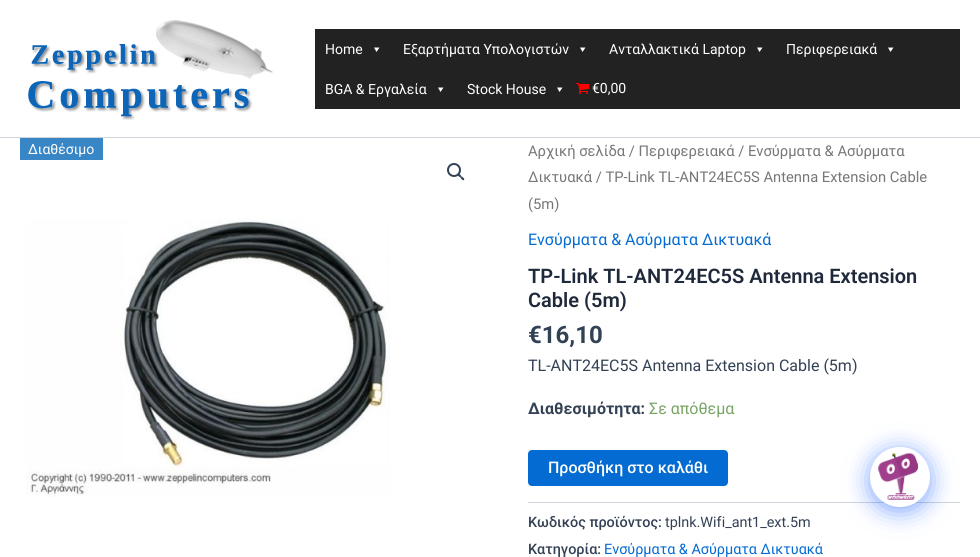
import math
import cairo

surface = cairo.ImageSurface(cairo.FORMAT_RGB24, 980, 557)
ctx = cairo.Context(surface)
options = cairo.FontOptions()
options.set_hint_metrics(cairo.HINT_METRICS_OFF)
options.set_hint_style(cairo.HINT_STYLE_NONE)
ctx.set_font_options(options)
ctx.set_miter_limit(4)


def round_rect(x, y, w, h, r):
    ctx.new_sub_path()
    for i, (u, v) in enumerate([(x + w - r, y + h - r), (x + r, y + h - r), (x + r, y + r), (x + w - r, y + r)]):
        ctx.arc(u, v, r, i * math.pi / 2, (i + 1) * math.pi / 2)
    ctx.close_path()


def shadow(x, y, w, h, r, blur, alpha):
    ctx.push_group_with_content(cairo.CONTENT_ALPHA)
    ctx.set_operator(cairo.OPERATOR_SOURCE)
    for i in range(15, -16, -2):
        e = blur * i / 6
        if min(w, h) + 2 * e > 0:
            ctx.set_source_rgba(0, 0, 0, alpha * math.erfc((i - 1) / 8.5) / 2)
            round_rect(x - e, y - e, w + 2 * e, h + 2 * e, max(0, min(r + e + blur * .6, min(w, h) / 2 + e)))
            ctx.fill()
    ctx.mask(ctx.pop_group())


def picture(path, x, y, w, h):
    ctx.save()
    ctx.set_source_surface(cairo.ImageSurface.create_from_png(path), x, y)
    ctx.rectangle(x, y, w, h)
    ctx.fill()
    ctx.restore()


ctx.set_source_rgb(1, 1, 1)
ctx.paint()
ctx.set_source_rgb(0.82, 0.835, 0.859)
ctx.rectangle(0, 137, 980, 1)
ctx.fill()
picture("img1.png", 28, 20, 245, 100)
ctx.set_source_rgb(0.133, 0.133, 0.133)
ctx.rectangle(315, 29, 645, 80)
ctx.fill()
ctx.select_font_face("Roboto")
ctx.set_font_size(14)
ctx.set_source_rgb(1, 1, 1)
ctx.move_to(325, 54)
ctx.show_text("Home")
ctx.new_path()
ctx.move_to(379.5, 47.5)
ctx.line_to(376.5, 52)
ctx.line_to(374, 47.5)
ctx.close_path()
ctx.fill()
ctx.move_to(403, 54)
ctx.show_text("Εξαρτήματα Υπολογιστών")
ctx.new_path()
ctx.move_to(585.5, 47.5)
ctx.line_to(582.5, 52)
ctx.line_to(580, 47.5)
ctx.close_path()
ctx.fill()
ctx.move_to(609, 54)
ctx.show_text("Ανταλλακτικά Laptop")
ctx.new_path()
ctx.move_to(762.5, 47.5)
ctx.line_to(759.5, 52)
ctx.line_to(757, 47.5)
ctx.close_path()
ctx.fill()
ctx.move_to(786, 54)
ctx.show_text("Περιφερειακά")
ctx.new_path()
ctx.move_to(893.5, 47.5)
ctx.line_to(890.5, 52)
ctx.line_to(888, 47.5)
ctx.close_path()
ctx.fill()
ctx.move_to(325, 94)
ctx.show_text("BGA & Εργαλεία")
ctx.new_path()
ctx.move_to(443.5, 87.5)
ctx.line_to(440.5, 92)
ctx.line_to(438, 87.5)
ctx.close_path()
ctx.fill()
ctx.move_to(467, 94)
ctx.show_text("Stock House")
ctx.new_path()
ctx.move_to(562.5, 87.5)
ctx.line_to(559.5, 92)
ctx.line_to(557, 87.5)
ctx.close_path()
ctx.fill()
picture("img2.png", 576, 83, 13, 11)
ctx.move_to(592, 93)
ctx.show_text("€0,00")
ctx.set_source_rgb(0.224, 0.525, 0.776)
ctx.rectangle(20, 138, 83, 22)
ctx.fill()
ctx.set_source_rgb(1, 1, 1)
ctx.move_to(28, 154)
ctx.show_text("Διαθέσιμο")
picture("img3.png", 26, 219, 364, 278)
ctx.arc(454, 170, 6, 0, 2 * math.pi)
ctx.set_source_rgb(0.2, 0.255, 0.333)
ctx.stroke()
ctx.new_path()
ctx.move_to(458, 174)
ctx.curve_to(459.5, 173, 461, 175.5, 461.5, 176.5)
ctx.curve_to(462.5, 177, 465, 178.5, 464, 180)
ctx.curve_to(462.5, 181, 461, 178.5, 460.5, 177.5)
ctx.curve_to(459.5, 177, 457, 175.5, 458, 174)
ctx.close_path()
ctx.fill()
ctx.set_font_size(14.75)
ctx.set_source_rgb(0.467, 0.467, 0.467)
ctx.move_to(528, 156)
ctx.show_text("Αρχική σελίδα / Περιφερειακά / Ενσύρματα & Ασύρματα")
ctx.move_to(528, 182)
ctx.show_text("Δικτυακά / TP-Link TL-ANT24EC5S Antenna Extension Cable")
ctx.move_to(528, 209)
ctx.show_text("(5m)")
ctx.set_font_size(16)
ctx.set_source_rgb(0.016, 0.42, 0.824)
ctx.move_to(528, 245)
ctx.show_text("Ενσύρματα & Ασύρματα Δικτυακά")
ctx.select_font_face("Roboto SemiBold")
ctx.set_font_size(20)
ctx.set_source_rgb(0.118, 0.161, 0.231)
ctx.move_to(528, 283)
ctx.show_text("TP-Link TL-ANT24EC5S Antenna Extension")
ctx.move_to(528, 307)
ctx.show_text("Cable (5m)")
ctx.select_font_face("Roboto", cairo.FONT_SLANT_NORMAL, cairo.FONT_WEIGHT_BOLD)
ctx.set_font_size(24)
ctx.set_source_rgb(0.2, 0.255, 0.333)
ctx.move_to(528, 343)
ctx.show_text("€16,10")
ctx.select_font_face("Roboto")
ctx.set_font_size(16)
ctx.move_to(528, 371)
ctx.show_text("TL-ANT24EC5S Antenna Extension Cable (5m)")
ctx.select_font_face("Roboto", cairo.FONT_SLANT_NORMAL, cairo.FONT_WEIGHT_BOLD)
ctx.move_to(528, 414)
ctx.show_text("Διαθεσιμότητα:")
ctx.select_font_face("Roboto")
ctx.set_source_rgb(0.467, 0.643, 0.392)
ctx.move_to(649, 414)
ctx.show_text("Σε απόθεμα")
ctx.set_source_rgb(0.016, 0.42, 0.824)
round_rect(528, 450, 200, 36, 4)
ctx.fill()
ctx.select_font_face("Roboto Medium")
ctx.set_source_rgb(1, 1, 1)
ctx.move_to(548, 473)
ctx.show_text("Προσθήκη στο καλάθι")
ctx.set_source_rgb(0.82, 0.835, 0.859)
ctx.rectangle(528, 502, 432, 1)
ctx.fill()
ctx.set_font_size(14.4)
ctx.set_source_rgb(0.2, 0.255, 0.333)
ctx.move_to(528, 527)
ctx.show_text("Κωδικός προϊόντος:")
ctx.select_font_face("Roboto")
ctx.move_to(665, 527)
ctx.show_text("tplnk.Wifi_ant1_ext.5m")
ctx.select_font_face("Roboto Medium")
ctx.move_to(528, 554)
ctx.show_text("Κατηγορία:")
ctx.select_font_face("Roboto")
ctx.set_source_rgb(0.016, 0.42, 0.824)
ctx.move_to(604, 554)
ctx.show_text("Ενσύρματα & Ασύρματα Δικτυακά")
ctx.set_source_rgb(0, 0.302, 1)
shadow(870, 451, 60, 60, 30, 12, 0.5)
ctx.set_source_rgb(1, 1, 1)
ctx.arc(900, 477, 30, 0, 2 * math.pi)
ctx.fill()
picture("img4.png", 877, 452, 42, 48)
surface.write_to_png("page.png")
